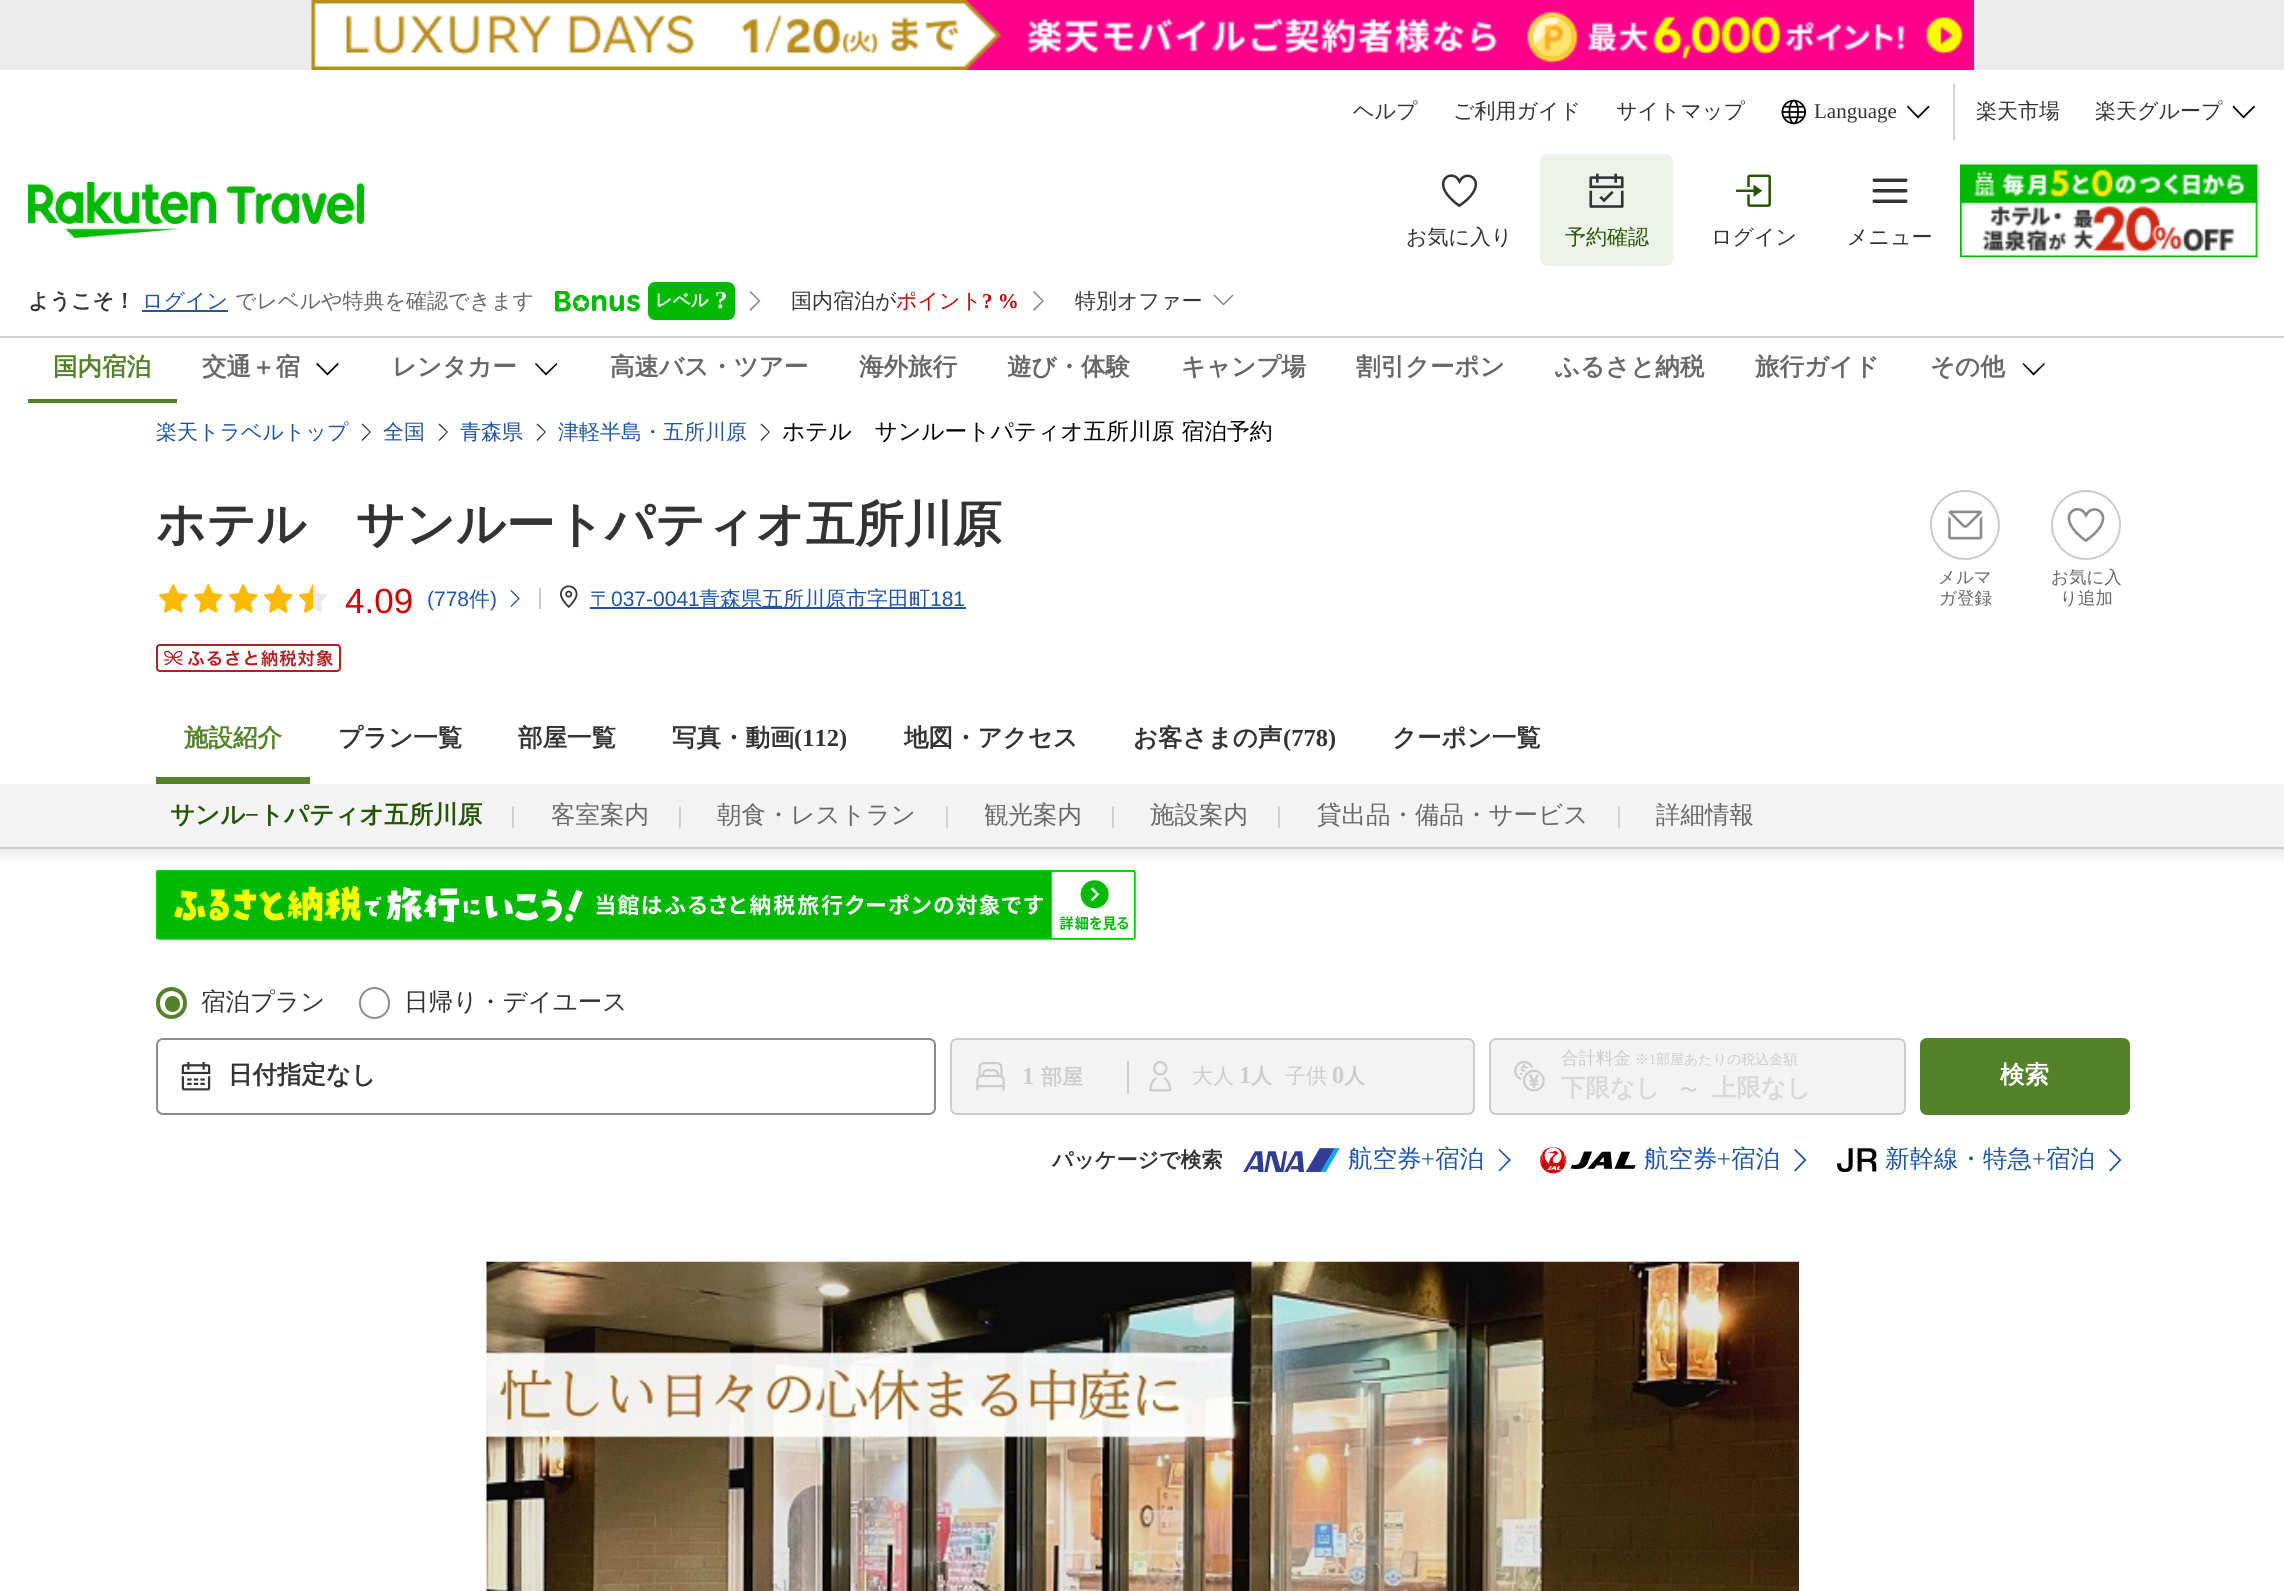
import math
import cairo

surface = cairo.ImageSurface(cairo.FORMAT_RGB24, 2284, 1591)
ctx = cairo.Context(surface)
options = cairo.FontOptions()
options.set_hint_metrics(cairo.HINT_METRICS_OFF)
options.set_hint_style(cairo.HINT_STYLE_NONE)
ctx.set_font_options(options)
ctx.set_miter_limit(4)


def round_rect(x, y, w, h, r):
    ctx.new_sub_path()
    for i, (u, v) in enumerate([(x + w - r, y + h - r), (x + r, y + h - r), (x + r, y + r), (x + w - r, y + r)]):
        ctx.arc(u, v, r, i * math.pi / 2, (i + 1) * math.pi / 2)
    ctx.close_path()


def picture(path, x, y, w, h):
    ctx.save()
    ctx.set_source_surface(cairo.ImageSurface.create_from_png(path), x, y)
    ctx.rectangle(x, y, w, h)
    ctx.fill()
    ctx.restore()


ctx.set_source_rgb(1, 1, 1)
ctx.paint()
ctx.set_source_rgb(0.918, 0.918, 0.918)
ctx.rectangle(0, 0, 2284, 70)
ctx.fill()
picture("img1.png", 311, 0, 1663, 70)
ctx.select_font_face("WenQuanYi Zen Hei Medium")
ctx.set_font_size(21)
ctx.set_source_rgb(0.2, 0.2, 0.2)
ctx.move_to(1353, 118)
ctx.show_text("ヘルプ")
ctx.move_to(1453, 118)
ctx.show_text("ご利用ガイド")
ctx.move_to(1616, 118)
ctx.show_text("サイトマップ")
picture("img2.png", 1781, 99, 25, 26)
ctx.select_font_face("Liberation Serif")
ctx.move_to(1814, 118)
ctx.show_text("Language")
ctx.set_source_rgb(0, 0, 0)
ctx.set_fill_rule(cairo.FILL_RULE_EVEN_ODD)
ctx.new_path()
ctx.move_to(1929.5, 107)
ctx.line_to(1928.5, 105.5)
ctx.line_to(1918, 116)
ctx.line_to(1908, 105.5)
ctx.line_to(1907, 107)
ctx.line_to(1918, 118.5)
ctx.close_path()
ctx.fill()
ctx.set_source_rgb(0.82, 0.82, 0.82)
ctx.rectangle(1953, 84, 2, 56)
ctx.fill()
ctx.select_font_face("WenQuanYi Zen Hei Medium")
ctx.set_source_rgb(0.2, 0.2, 0.2)
ctx.move_to(1976, 118)
ctx.show_text("楽天市場")
ctx.move_to(2095, 118)
ctx.show_text("楽天グループ")
ctx.set_source_rgb(0, 0, 0)
ctx.new_path()
ctx.move_to(2255, 107)
ctx.line_to(2254, 105.5)
ctx.line_to(2243.5, 116)
ctx.line_to(2233.5, 105.5)
ctx.line_to(2232.5, 107)
ctx.line_to(2243.5, 118.5)
ctx.close_path()
ctx.fill()
picture("img3.png", 28, 182, 336, 56)
picture("img4.png", 1441, 174, 37, 34)
ctx.set_source_rgb(0.2, 0.2, 0.2)
ctx.move_to(1406, 244)
ctx.show_text("お気に入り")
ctx.set_source_rgb(0.929, 0.949, 0.914)
round_rect(1540, 154, 133, 112, 7)
ctx.fill()
picture("img5.png", 1589, 173, 35, 35)
ctx.set_source_rgb(0.145, 0.333, 0)
ctx.move_to(1565, 244)
ctx.show_text("予約確認")
picture("img6.png", 1736, 174, 35, 33)
ctx.set_source_rgb(0.2, 0.2, 0.2)
ctx.move_to(1711, 244)
ctx.show_text("ログイン")
picture("img7.png", 1872, 178, 36, 25)
ctx.move_to(1847, 244)
ctx.show_text("メニュー")
picture("img8.png", 1960, 164, 298, 94)
ctx.select_font_face("WenQuanYi Zen Hei", cairo.FONT_SLANT_NORMAL, cairo.FONT_WEIGHT_BOLD)
ctx.move_to(28, 308)
ctx.show_text("ようこそ！")
ctx.set_source_rgb(0.114, 0.329, 0.655)
ctx.rectangle(142, 310, 86, 2)
ctx.fill()
ctx.select_font_face("WenQuanYi Zen Hei Medium")
ctx.move_to(142, 308)
ctx.show_text("ログイン")
ctx.set_source_rgb(0.408, 0.408, 0.408)
ctx.move_to(235, 308)
ctx.show_text("でレベルや特典を確認できます")
picture("img9.png", 555, 291, 85, 21)
ctx.set_source_rgb(0, 0.725, 0)
round_rect(648, 282, 87, 38, 7)
ctx.fill()
ctx.select_font_face("WenQuanYi Zen Hei", cairo.FONT_SLANT_NORMAL, cairo.FONT_WEIGHT_BOLD)
ctx.set_font_size(17.5)
ctx.set_source_rgb(1, 1, 1)
ctx.move_to(655, 306)
ctx.show_text("レベル")
ctx.select_font_face("Liberation Serif", cairo.FONT_SLANT_NORMAL, cairo.FONT_WEIGHT_BOLD)
ctx.set_font_size(24.5)
ctx.move_to(715, 308)
ctx.show_text("?")
ctx.set_source_rgb(0.51, 0.51, 0.51)
ctx.new_path()
ctx.move_to(750.5, 291)
ctx.line_to(749.5, 292)
ctx.line_to(758.5, 301)
ctx.line_to(749.5, 309.5)
ctx.line_to(750.5, 311)
ctx.line_to(760.5, 301)
ctx.close_path()
ctx.fill()
ctx.select_font_face("WenQuanYi Zen Hei Medium")
ctx.set_font_size(21)
ctx.set_source_rgb(0.2, 0.2, 0.2)
ctx.move_to(791, 308)
ctx.show_text("国内宿泊が")
ctx.set_source_rgb(0.749, 0, 0)
ctx.move_to(896, 308)
ctx.show_text("ポイント")
ctx.select_font_face("Liberation Serif", cairo.FONT_SLANT_NORMAL, cairo.FONT_WEIGHT_BOLD)
ctx.move_to(982, 308)
ctx.show_text("? %")
ctx.set_source_rgb(0.51, 0.51, 0.51)
ctx.new_path()
ctx.move_to(1034, 291)
ctx.line_to(1033, 292)
ctx.line_to(1042, 301)
ctx.line_to(1033, 309.5)
ctx.line_to(1034, 311)
ctx.line_to(1044, 301)
ctx.close_path()
ctx.fill()
ctx.select_font_face("WenQuanYi Zen Hei Medium")
ctx.set_source_rgb(0.2, 0.2, 0.2)
ctx.move_to(1075, 308)
ctx.show_text("特別オファー")
ctx.set_source_rgb(0.51, 0.51, 0.51)
ctx.new_path()
ctx.move_to(1233.5, 295.5)
ctx.line_to(1232.5, 294.5)
ctx.line_to(1223.5, 303.5)
ctx.line_to(1214.5, 294.5)
ctx.line_to(1213.5, 295.5)
ctx.line_to(1223.5, 305.5)
ctx.close_path()
ctx.fill()
ctx.set_source_rgb(0.82, 0.82, 0.82)
ctx.rectangle(0, 336, 2284, 2)
ctx.fill()
ctx.set_source_rgb(0.329, 0.51, 0.169)
ctx.rectangle(28, 399, 149, 4)
ctx.fill()
ctx.select_font_face("WenQuanYi Zen Hei", cairo.FONT_SLANT_NORMAL, cairo.FONT_WEIGHT_BOLD)
ctx.set_font_size(24.5)
ctx.move_to(53, 375)
ctx.show_text("国内宿泊")
ctx.set_source_rgb(0.408, 0.408, 0.408)
ctx.move_to(202, 375)
ctx.show_text("交通＋宿")
ctx.set_source_rgb(0, 0, 0)
ctx.new_path()
ctx.move_to(339, 364)
ctx.line_to(337.5, 363)
ctx.line_to(327.5, 373)
ctx.line_to(317.5, 363)
ctx.line_to(316, 364)
ctx.line_to(327.5, 375.5)
ctx.close_path()
ctx.fill()
ctx.set_source_rgb(0.408, 0.408, 0.408)
ctx.move_to(392, 375)
ctx.show_text("レンタカー")
ctx.set_source_rgb(0, 0, 0)
ctx.new_path()
ctx.move_to(557.5, 364)
ctx.line_to(556.5, 363)
ctx.line_to(546, 373)
ctx.line_to(536, 363)
ctx.line_to(535, 364)
ctx.line_to(546, 375.5)
ctx.close_path()
ctx.fill()
ctx.set_source_rgb(0.408, 0.408, 0.408)
ctx.move_to(610, 375)
ctx.show_text("高速バス・ツアー")
ctx.move_to(859, 375)
ctx.show_text("海外旅行")
ctx.move_to(1007, 375)
ctx.show_text("遊び・体験")
ctx.move_to(1181, 375)
ctx.show_text("キャンプ場")
ctx.move_to(1356, 375)
ctx.show_text("割引クーポン")
ctx.move_to(1555, 375)
ctx.show_text("ふるさと納税")
ctx.move_to(1755, 375)
ctx.show_text("旅行ガイド")
ctx.move_to(1930, 375)
ctx.show_text("その他")
ctx.set_source_rgb(0, 0, 0)
ctx.new_path()
ctx.move_to(2045, 364)
ctx.line_to(2044, 363)
ctx.line_to(2033.5, 373)
ctx.line_to(2023.5, 363)
ctx.line_to(2022.5, 364)
ctx.line_to(2033.5, 375.5)
ctx.close_path()
ctx.fill()
ctx.select_font_face("WenQuanYi Zen Hei Medium")
ctx.set_font_size(21)
ctx.set_source_rgb(0.114, 0.329, 0.655)
ctx.move_to(156, 439)
ctx.show_text("楽天トラベルトップ")
ctx.set_source_rgb(0.2, 0.2, 0.2)
ctx.new_path()
ctx.move_to(362.5, 423.5)
ctx.line_to(361.5, 424.5)
ctx.line_to(369.5, 432)
ctx.line_to(361.5, 440)
ctx.line_to(362.5, 441)
ctx.line_to(371, 432)
ctx.close_path()
ctx.fill()
ctx.set_source_rgb(0.114, 0.329, 0.655)
ctx.move_to(383, 439)
ctx.show_text("全国")
ctx.set_source_rgb(0.2, 0.2, 0.2)
ctx.new_path()
ctx.move_to(439.5, 423.5)
ctx.line_to(438.5, 424.5)
ctx.line_to(446.5, 432)
ctx.line_to(438.5, 440)
ctx.line_to(439.5, 441)
ctx.line_to(448, 432)
ctx.close_path()
ctx.fill()
ctx.set_source_rgb(0.114, 0.329, 0.655)
ctx.move_to(460, 439)
ctx.show_text("青森県")
ctx.set_source_rgb(0.2, 0.2, 0.2)
ctx.new_path()
ctx.move_to(537.5, 423.5)
ctx.line_to(536.5, 424.5)
ctx.line_to(544.5, 432)
ctx.line_to(536.5, 440)
ctx.line_to(537.5, 441)
ctx.line_to(546, 432)
ctx.close_path()
ctx.fill()
ctx.set_source_rgb(0.114, 0.329, 0.655)
ctx.move_to(558, 439)
ctx.show_text("津軽半島・五所川原")
ctx.set_source_rgb(0.2, 0.2, 0.2)
ctx.new_path()
ctx.move_to(761.5, 423.5)
ctx.line_to(760.5, 424.5)
ctx.line_to(768.5, 432)
ctx.line_to(760.5, 440)
ctx.line_to(761.5, 441)
ctx.line_to(770, 432)
ctx.close_path()
ctx.fill()
ctx.set_font_size(22.75)
ctx.set_source_rgb(0, 0, 0)
ctx.move_to(782, 439)
ctx.show_text("ホテル　サンルートパティオ五所川原 宿泊予約")
ctx.select_font_face("WenQuanYi Zen Hei", cairo.FONT_SLANT_NORMAL, cairo.FONT_WEIGHT_BOLD)
ctx.set_font_size(49)
ctx.set_source_rgb(0.2, 0.2, 0.2)
ctx.move_to(156, 541)
ctx.show_text("ホテル　サンルートパティオ五所川原")
picture("img10.png", 159, 584, 29, 29)
picture("img10.png", 194, 584, 29, 29)
picture("img10.png", 229, 584, 29, 29)
picture("img10.png", 264, 584, 29, 29)
picture("img11.png", 299, 584, 29, 29)
ctx.select_font_face("Liberation Sans")
ctx.set_font_size(35)
ctx.set_source_rgb(0.8, 0, 0)
ctx.move_to(345, 613)
ctx.show_text("4.09")
ctx.set_source_rgb(0.8, 0.8, 0.8)
ctx.rectangle(539, 588, 2, 21)
ctx.fill()
ctx.set_font_size(21)
ctx.set_source_rgb(0.114, 0.329, 0.655)
ctx.move_to(427, 606)
ctx.show_text("(778")
ctx.select_font_face("WenQuanYi Zen Hei Medium")
ctx.move_to(469, 606)
ctx.show_text("件")
ctx.select_font_face("Liberation Sans")
ctx.move_to(490, 606)
ctx.show_text(")")
picture("img12.png", 510, 590, 10, 17)
picture("img13.png", 560, 585, 18, 23)
ctx.select_font_face("WenQuanYi Zen Hei Medium")
ctx.move_to(590, 606)
ctx.show_text("〒")
ctx.rectangle(590, 607, 376, 2)
ctx.fill()
ctx.select_font_face("Liberation Sans")
ctx.move_to(611, 606)
ctx.show_text("037-0041")
ctx.select_font_face("WenQuanYi Zen Hei Medium")
ctx.move_to(699, 606)
ctx.show_text("青森県五所川原市字田町")
ctx.select_font_face("Liberation Sans")
ctx.move_to(930, 606)
ctx.show_text("181")
picture("img14.png", 156, 644, 185, 28)
picture("img15.png", 1930, 490, 70, 70)
ctx.select_font_face("WenQuanYi Zen Hei Medium")
ctx.set_font_size(17.5)
ctx.set_source_rgb(0.408, 0.408, 0.408)
ctx.move_to(1938, 583)
ctx.show_text("メルマ")
ctx.move_to(1939, 604)
ctx.show_text("ガ登録")
picture("img16.png", 2051, 490, 70, 70)
ctx.move_to(2051, 583)
ctx.show_text("お気に入")
ctx.move_to(2060, 604)
ctx.show_text("り追加")
ctx.set_source_rgb(0.329, 0.51, 0.169)
ctx.rectangle(156, 777, 154, 7)
ctx.fill()
ctx.select_font_face("WenQuanYi Zen Hei", cairo.FONT_SLANT_NORMAL, cairo.FONT_WEIGHT_BOLD)
ctx.set_font_size(24.5)
ctx.move_to(184, 746)
ctx.show_text("施設紹介")
ctx.set_source_rgb(0.2, 0.2, 0.2)
ctx.move_to(338, 746)
ctx.show_text("プラン一覧")
ctx.move_to(518, 746)
ctx.show_text("部屋一覧")
ctx.move_to(672, 746)
ctx.show_text("写真・動画")
ctx.select_font_face("Liberation Serif", cairo.FONT_SLANT_NORMAL, cairo.FONT_WEIGHT_BOLD)
ctx.move_to(794, 746)
ctx.show_text("(112)")
ctx.select_font_face("WenQuanYi Zen Hei", cairo.FONT_SLANT_NORMAL, cairo.FONT_WEIGHT_BOLD)
ctx.move_to(904, 746)
ctx.show_text("地図・アクセス")
ctx.move_to(1133, 746)
ctx.show_text("お客さまの声")
ctx.select_font_face("Liberation Serif", cairo.FONT_SLANT_NORMAL, cairo.FONT_WEIGHT_BOLD)
ctx.move_to(1283, 746)
ctx.show_text("(778)")
ctx.select_font_face("WenQuanYi Zen Hei", cairo.FONT_SLANT_NORMAL, cairo.FONT_WEIGHT_BOLD)
ctx.move_to(1392, 746)
ctx.show_text("クーポン一覧")
gradient = cairo.LinearGradient(1143, 866, 1143, 849)
gradient.add_color_stop_rgba(0, 1, 1, 1, 1)
gradient.add_color_stop_rgba(1, 0.929, 0.929, 0.929, 1)
ctx.set_source(gradient)
ctx.rectangle(0, 849, 2284, 15)
ctx.fill()
ctx.set_source_rgb(0.953, 0.953, 0.953)
ctx.rectangle(0, 784, 2284, 63)
ctx.fill()
ctx.set_source_rgb(0.8, 0.8, 0.8)
ctx.rectangle(0, 847, 2284, 2)
ctx.fill()
ctx.set_source_rgb(0.145, 0.333, 0)
ctx.move_to(170, 823)
ctx.show_text("サンル")
ctx.select_font_face("Liberation Serif", cairo.FONT_SLANT_NORMAL, cairo.FONT_WEIGHT_BOLD)
ctx.move_to(245, 823)
ctx.show_text("−")
ctx.select_font_face("WenQuanYi Zen Hei", cairo.FONT_SLANT_NORMAL, cairo.FONT_WEIGHT_BOLD)
ctx.move_to(259, 823)
ctx.show_text("トパティオ五所川原")
ctx.select_font_face("Liberation Sans")
ctx.set_font_size(22.75)
ctx.set_source_rgb(0.8, 0.8, 0.8)
ctx.move_to(510, 823)
ctx.show_text("|")
ctx.select_font_face("WenQuanYi Zen Hei Medium")
ctx.set_font_size(24.5)
ctx.set_source_rgb(0.408, 0.408, 0.408)
ctx.move_to(551, 823)
ctx.show_text("客室案内")
ctx.select_font_face("Liberation Sans")
ctx.set_font_size(22.75)
ctx.set_source_rgb(0.8, 0.8, 0.8)
ctx.move_to(677, 823)
ctx.show_text("|")
ctx.select_font_face("WenQuanYi Zen Hei Medium")
ctx.set_font_size(24.5)
ctx.set_source_rgb(0.408, 0.408, 0.408)
ctx.move_to(717, 823)
ctx.show_text("朝食・レストラン")
ctx.select_font_face("Liberation Sans")
ctx.set_font_size(22.75)
ctx.set_source_rgb(0.8, 0.8, 0.8)
ctx.move_to(944, 823)
ctx.show_text("|")
ctx.select_font_face("WenQuanYi Zen Hei Medium")
ctx.set_font_size(24.5)
ctx.set_source_rgb(0.408, 0.408, 0.408)
ctx.move_to(984, 823)
ctx.show_text("観光案内")
ctx.select_font_face("Liberation Sans")
ctx.set_font_size(22.75)
ctx.set_source_rgb(0.8, 0.8, 0.8)
ctx.move_to(1110, 823)
ctx.show_text("|")
ctx.select_font_face("WenQuanYi Zen Hei Medium")
ctx.set_font_size(24.5)
ctx.set_source_rgb(0.408, 0.408, 0.408)
ctx.move_to(1150, 823)
ctx.show_text("施設案内")
ctx.select_font_face("Liberation Sans")
ctx.set_font_size(22.75)
ctx.set_source_rgb(0.8, 0.8, 0.8)
ctx.move_to(1276, 823)
ctx.show_text("|")
ctx.select_font_face("WenQuanYi Zen Hei Medium")
ctx.set_font_size(24.5)
ctx.set_source_rgb(0.408, 0.408, 0.408)
ctx.move_to(1317, 823)
ctx.show_text("貸出品・備品・サービス")
ctx.select_font_face("Liberation Sans")
ctx.set_font_size(22.75)
ctx.set_source_rgb(0.8, 0.8, 0.8)
ctx.move_to(1616, 823)
ctx.show_text("|")
ctx.select_font_face("WenQuanYi Zen Hei Medium")
ctx.set_font_size(24.5)
ctx.set_source_rgb(0.408, 0.408, 0.408)
ctx.move_to(1656, 823)
ctx.show_text("詳細情報")
picture("img17.png", 156, 870, 980, 70)
round_rect(158, 989, 27, 28, 13.5)
ctx.set_source_rgb(0.329, 0.51, 0.169)
ctx.set_line_width(4)
ctx.stroke()
ctx.set_source_rgb(0.2, 0.2, 0.2)
ctx.move_to(201, 1010)
ctx.show_text("宿泊プラン")
ctx.set_source_rgb(0.329, 0.51, 0.169)
round_rect(165, 996, 15, 16, 7.5)
ctx.fill()
round_rect(360, 988, 29, 30, 14.5)
ctx.set_source_rgb(0.549, 0.549, 0.549)
ctx.set_line_width(2)
ctx.stroke()
ctx.set_source_rgb(0.2, 0.2, 0.2)
ctx.move_to(404, 1010)
ctx.show_text("日帰り・デイユース")
round_rect(157, 1039, 778, 75, 6)
ctx.set_source_rgb(0.549, 0.549, 0.549)
ctx.stroke()
picture("img18.png", 181, 1062, 30, 29)
ctx.select_font_face("WenQuanYi Zen Hei", cairo.FONT_SLANT_NORMAL, cairo.FONT_WEIGHT_BOLD)
ctx.set_source_rgb(0.2, 0.2, 0.2)
ctx.move_to(228, 1083)
ctx.show_text("日付指定なし")
ctx.set_source_rgb(0.953, 0.953, 0.953)
round_rect(951, 1039, 523, 75, 6)
ctx.fill_preserve()
ctx.set_source_rgb(0.8, 0.8, 0.8)
ctx.stroke()
ctx.rectangle(1127, 1061, 2, 33)
ctx.fill()
picture("img19.png", 976, 1062, 29, 29)
ctx.select_font_face("Liberation Serif", cairo.FONT_SLANT_NORMAL, cairo.FONT_WEIGHT_BOLD)
ctx.move_to(1022, 1084)
ctx.show_text("1")
ctx.select_font_face("WenQuanYi Zen Hei", cairo.FONT_SLANT_NORMAL, cairo.FONT_WEIGHT_BOLD)
ctx.set_font_size(21)
ctx.move_to(1041, 1084)
ctx.show_text("部屋")
picture("img20.png", 1149, 1061, 23, 31)
ctx.select_font_face("WenQuanYi Zen Hei Medium")
ctx.move_to(1192, 1083)
ctx.show_text("大人")
ctx.select_font_face("Liberation Serif", cairo.FONT_SLANT_NORMAL, cairo.FONT_WEIGHT_BOLD)
ctx.set_font_size(24.5)
ctx.move_to(1239, 1083)
ctx.show_text("1")
ctx.select_font_face("WenQuanYi Zen Hei", cairo.FONT_SLANT_NORMAL, cairo.FONT_WEIGHT_BOLD)
ctx.set_font_size(21)
ctx.move_to(1251, 1083)
ctx.show_text("人")
ctx.select_font_face("WenQuanYi Zen Hei Medium")
ctx.move_to(1285, 1083)
ctx.show_text("子供")
ctx.select_font_face("Liberation Serif", cairo.FONT_SLANT_NORMAL, cairo.FONT_WEIGHT_BOLD)
ctx.set_font_size(24.5)
ctx.move_to(1332, 1083)
ctx.show_text("0")
ctx.select_font_face("WenQuanYi Zen Hei", cairo.FONT_SLANT_NORMAL, cairo.FONT_WEIGHT_BOLD)
ctx.set_font_size(21)
ctx.move_to(1344, 1083)
ctx.show_text("人")
ctx.set_source_rgb(0.953, 0.953, 0.953)
round_rect(1490, 1039, 415, 75, 6)
ctx.fill_preserve()
ctx.set_source_rgb(0.8, 0.8, 0.8)
ctx.stroke()
picture("img21.png", 1514, 1061, 31, 31)
ctx.select_font_face("WenQuanYi Zen Hei Medium")
ctx.set_font_size(17.5)
ctx.move_to(1561, 1064)
ctx.show_text("合計料金")
ctx.set_font_size(14)
ctx.move_to(1635, 1064)
ctx.show_text("※")
ctx.select_font_face("Liberation Serif")
ctx.move_to(1649, 1064)
ctx.show_text("1")
ctx.select_font_face("WenQuanYi Zen Hei Medium")
ctx.move_to(1656, 1064)
ctx.show_text("部屋あたりの税込金額")
ctx.select_font_face("WenQuanYi Zen Hei", cairo.FONT_SLANT_NORMAL, cairo.FONT_WEIGHT_BOLD)
ctx.set_font_size(24.5)
ctx.set_source_rgb(0.847, 0.847, 0.847)
ctx.move_to(1561, 1096)
ctx.show_text("下限なし")
ctx.select_font_face("WenQuanYi Zen Hei Medium")
ctx.set_font_size(17.5)
ctx.set_source_rgb(0.8, 0.8, 0.8)
ctx.move_to(1680, 1096)
ctx.show_text("〜")
ctx.select_font_face("WenQuanYi Zen Hei", cairo.FONT_SLANT_NORMAL, cairo.FONT_WEIGHT_BOLD)
ctx.set_font_size(24.5)
ctx.set_source_rgb(0.847, 0.847, 0.847)
ctx.move_to(1712, 1096)
ctx.show_text("上限なし")
ctx.set_source_rgb(0.329, 0.51, 0.169)
round_rect(1920, 1038, 210, 77, 7)
ctx.fill()
ctx.set_source_rgb(1, 1, 1)
ctx.move_to(2000, 1083)
ctx.show_text("検索")
ctx.set_font_size(21)
ctx.set_source_rgb(0.2, 0.2, 0.2)
ctx.move_to(1052, 1167)
ctx.show_text("パッケージで検索")
picture("img22.png", 1243, 1148, 97, 24)
ctx.select_font_face("WenQuanYi Zen Hei Medium")
ctx.set_font_size(24.5)
ctx.set_source_rgb(0.114, 0.329, 0.655)
ctx.move_to(1348, 1167)
ctx.show_text("航空券")
ctx.select_font_face("Liberation Serif")
ctx.move_to(1421, 1167)
ctx.show_text("+")
ctx.select_font_face("WenQuanYi Zen Hei Medium")
ctx.move_to(1435, 1167)
ctx.show_text("宿泊")
ctx.new_path()
ctx.move_to(1499.5, 1149)
ctx.line_to(1498.5, 1150)
ctx.line_to(1508.5, 1160)
ctx.line_to(1498.5, 1170.5)
ctx.line_to(1499.5, 1171.5)
ctx.line_to(1511, 1160)
ctx.close_path()
ctx.fill()
picture("img23.png", 1540, 1147, 96, 27)
ctx.move_to(1644, 1167)
ctx.show_text("航空券")
ctx.select_font_face("Liberation Serif")
ctx.move_to(1717, 1167)
ctx.show_text("+")
ctx.select_font_face("WenQuanYi Zen Hei Medium")
ctx.move_to(1731, 1167)
ctx.show_text("宿泊")
ctx.new_path()
ctx.move_to(1795.5, 1149)
ctx.line_to(1794, 1150)
ctx.line_to(1804, 1160)
ctx.line_to(1794, 1170.5)
ctx.line_to(1795.5, 1171.5)
ctx.line_to(1806.5, 1160)
ctx.close_path()
ctx.fill()
picture("img24.png", 1837, 1148, 40, 24)
ctx.move_to(1885, 1167)
ctx.show_text("新幹線・特急")
ctx.select_font_face("Liberation Serif")
ctx.move_to(2032, 1167)
ctx.show_text("+")
ctx.select_font_face("WenQuanYi Zen Hei Medium")
ctx.move_to(2046, 1167)
ctx.show_text("宿泊")
ctx.new_path()
ctx.move_to(2110.5, 1149)
ctx.line_to(2109, 1150)
ctx.line_to(2119, 1160)
ctx.line_to(2109, 1170.5)
ctx.line_to(2110.5, 1171.5)
ctx.line_to(2121.5, 1160)
ctx.close_path()
ctx.fill()
picture("img25.png", 486, 1261, 1313, 330)
surface.write_to_png("page.png")
